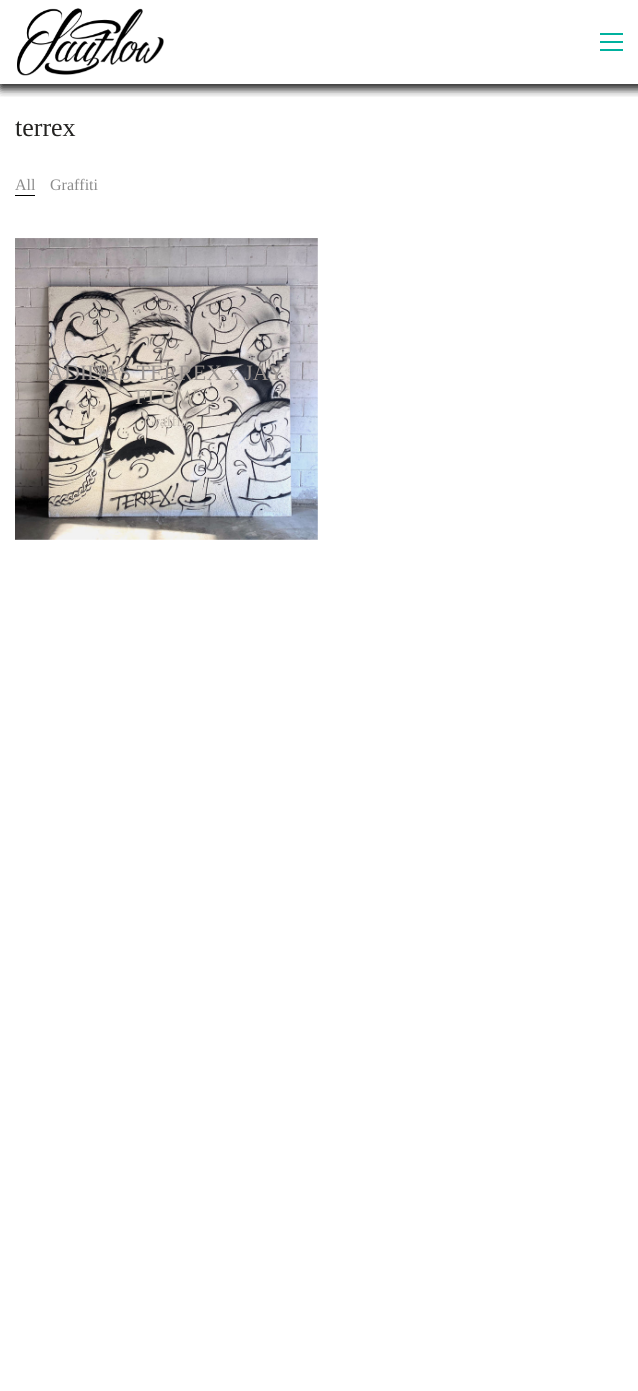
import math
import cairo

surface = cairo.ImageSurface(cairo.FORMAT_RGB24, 638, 1391)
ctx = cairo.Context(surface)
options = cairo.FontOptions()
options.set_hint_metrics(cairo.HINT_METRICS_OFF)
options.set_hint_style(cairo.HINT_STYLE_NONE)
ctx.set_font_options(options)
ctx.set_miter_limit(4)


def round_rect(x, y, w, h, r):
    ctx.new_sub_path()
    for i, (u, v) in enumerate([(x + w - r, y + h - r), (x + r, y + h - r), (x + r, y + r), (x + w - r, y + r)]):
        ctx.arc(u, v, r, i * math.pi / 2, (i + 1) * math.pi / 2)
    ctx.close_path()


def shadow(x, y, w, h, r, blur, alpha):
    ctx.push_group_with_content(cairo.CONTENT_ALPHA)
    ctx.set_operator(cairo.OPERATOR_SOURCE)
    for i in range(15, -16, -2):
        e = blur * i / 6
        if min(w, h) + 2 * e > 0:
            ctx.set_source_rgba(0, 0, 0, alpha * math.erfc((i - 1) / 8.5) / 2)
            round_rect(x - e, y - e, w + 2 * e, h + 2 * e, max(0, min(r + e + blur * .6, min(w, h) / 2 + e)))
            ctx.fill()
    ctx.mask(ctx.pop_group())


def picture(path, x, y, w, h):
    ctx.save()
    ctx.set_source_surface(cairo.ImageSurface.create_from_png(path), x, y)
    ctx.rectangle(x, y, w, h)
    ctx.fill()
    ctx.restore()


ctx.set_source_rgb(1, 1, 1)
ctx.paint()
ctx.save()
ctx.rectangle(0, 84, 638, 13)
ctx.clip()
ctx.set_source_rgb(0.2, 0.2, 0.2)
shadow(1, 1, 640, 86, 0, 5, 1)
shadow(1, 1, 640, 86, 0, 5, 1)
ctx.restore()
picture("img1.png", 17, 8, 147, 68)
ctx.set_source_rgb(0, 0.694, 0.62)
ctx.rectangle(600, 33, 23, 2)
ctx.fill()
ctx.rectangle(600, 41, 23, 2)
ctx.fill()
ctx.rectangle(600, 49, 23, 2)
ctx.fill()
ctx.select_font_face("Liberation Serif")
ctx.set_font_size(26)
ctx.set_source_rgb(0.141, 0.137, 0.129)
ctx.move_to(15, 136)
ctx.show_text("terrex")
ctx.set_font_size(16)
ctx.set_source_rgb(0.549, 0.549, 0.549)
ctx.move_to(15, 190)
ctx.show_text("All")
ctx.set_source_rgb(0, 0, 0)
ctx.rectangle(15, 195, 20, 1)
ctx.fill()
ctx.set_source_rgb(0.549, 0.549, 0.549)
ctx.move_to(50, 190)
ctx.show_text("Graffiti")
picture("img2.png", 15, 238, 303, 302)
ctx.set_font_size(22)
ctx.set_source_rgb(0.6, 0.576, 0.565)
ctx.move_to(48, 380)
ctx.show_text("ADIDAS TERREX x JAY")
ctx.set_source_rgb(0.678, 0.651, 0.616)
ctx.move_to(135, 404)
ctx.show_text("FLOW")
ctx.set_font_size(15)
ctx.set_source_rgb(0.776, 0.749, 0.714)
ctx.move_to(144, 426)
ctx.show_text("Graffiti")
surface.write_to_png("page.png")
